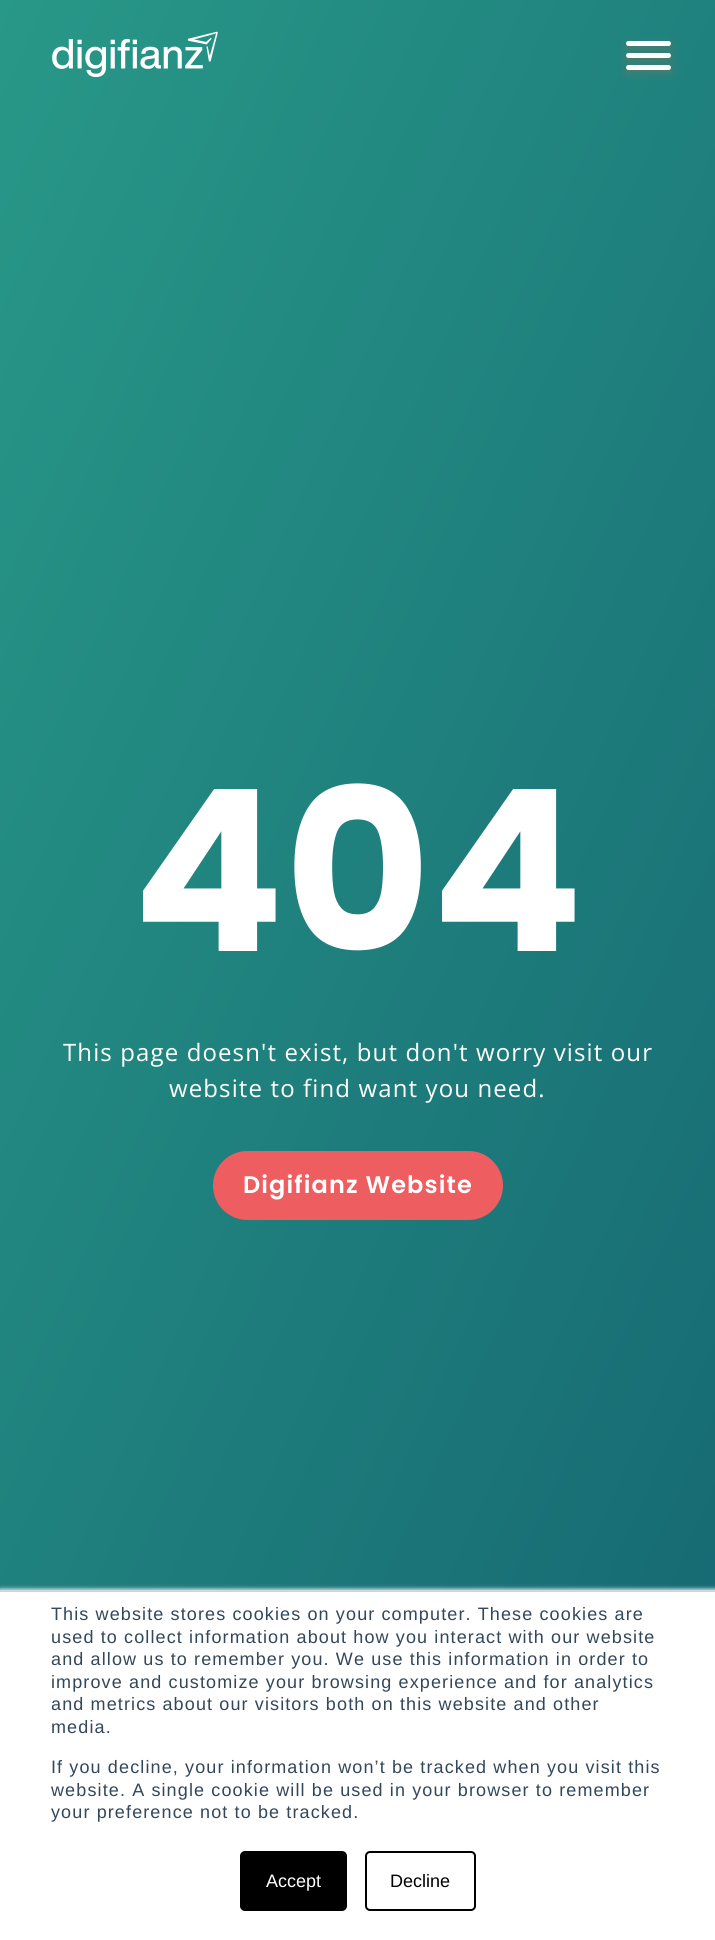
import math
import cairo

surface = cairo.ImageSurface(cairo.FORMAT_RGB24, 715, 1940)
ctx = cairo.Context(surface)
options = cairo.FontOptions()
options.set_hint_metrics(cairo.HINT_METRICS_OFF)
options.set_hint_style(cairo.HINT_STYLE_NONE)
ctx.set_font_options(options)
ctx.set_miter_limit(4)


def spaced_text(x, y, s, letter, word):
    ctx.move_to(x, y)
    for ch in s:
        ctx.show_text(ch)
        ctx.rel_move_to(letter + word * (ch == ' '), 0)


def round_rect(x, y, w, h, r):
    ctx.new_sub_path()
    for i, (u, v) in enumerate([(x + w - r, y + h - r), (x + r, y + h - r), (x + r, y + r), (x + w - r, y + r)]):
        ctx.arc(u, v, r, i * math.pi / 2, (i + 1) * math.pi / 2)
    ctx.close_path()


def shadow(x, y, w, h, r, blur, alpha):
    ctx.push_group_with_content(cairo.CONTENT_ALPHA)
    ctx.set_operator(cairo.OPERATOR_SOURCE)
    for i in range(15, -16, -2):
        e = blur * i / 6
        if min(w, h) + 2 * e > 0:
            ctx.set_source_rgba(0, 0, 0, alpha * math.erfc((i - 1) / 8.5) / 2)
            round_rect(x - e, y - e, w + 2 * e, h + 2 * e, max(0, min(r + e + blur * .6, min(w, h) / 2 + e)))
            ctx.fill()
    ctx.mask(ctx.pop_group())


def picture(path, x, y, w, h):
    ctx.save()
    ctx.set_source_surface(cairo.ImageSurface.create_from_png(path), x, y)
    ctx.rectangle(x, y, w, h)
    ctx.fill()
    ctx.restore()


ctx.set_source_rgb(1, 1, 1)
ctx.paint()
gradient = cairo.LinearGradient(-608, 1337, 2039, 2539)
gradient.add_color_stop_rgba(0, 0.157, 0.596, 0.533, 1)
gradient.add_color_stop_rgba(1, 0.008, 0.204, 0.357, 1)
ctx.set_source(gradient)
ctx.rectangle(0, 0, 715, 1590)
ctx.fill()
picture("img1.png", 52, 31, 166, 47)
ctx.set_source_rgb(1, 0.396, 0.184)
shadow(626, 56, 45, 5, 2.5, 4, 0.2)
ctx.set_source_rgb(1, 1, 1)
round_rect(626, 53, 45, 5, 2.5)
ctx.fill()
ctx.set_source_rgb(1, 0.396, 0.184)
shadow(626, 44, 45, 5, 2.5, 4, 0.2)
ctx.set_source_rgb(1, 1, 1)
round_rect(626, 41, 45, 5, 2.5)
ctx.fill()
ctx.set_source_rgb(1, 0.396, 0.184)
shadow(626, 68, 45, 5, 2.5, 4, 0.2)
ctx.set_source_rgb(1, 1, 1)
round_rect(626, 65, 45, 5, 2.5)
ctx.fill()
ctx.select_font_face("Poppins", cairo.FONT_SLANT_NORMAL, cairo.FONT_WEIGHT_BOLD)
ctx.set_font_size(225)
ctx.move_to(132, 951)
ctx.show_text("404")
ctx.select_font_face("Open Sans")
ctx.set_font_size(24)
spaced_text(63, 1061, "This page doesn't exist, but don't worry visit our", 1.12, 0)
spaced_text(169, 1097, "website to find want you need.", 1.12, 0)
ctx.set_source_rgb(0.933, 0.369, 0.376)
round_rect(213, 1151, 290, 69, 34.5)
ctx.fill()
ctx.select_font_face("Poppins SemiBold")
ctx.set_source_rgb(1, 1, 1)
spaced_text(243, 1193, "Digifianz Website", 1.12, 0)
ctx.set_source_rgb(0.918, 0.941, 0.965)
shadow(0, 1589, 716, 351, 0, 2, 1)
ctx.set_source_rgb(1, 1, 1)
ctx.rectangle(0, 1592, 715, 348)
ctx.fill()
ctx.set_source_rgb(0.796, 0.839, 0.886)
ctx.rectangle(0, 1590, 715, 2)
ctx.fill()
ctx.select_font_face("Liberation Sans")
ctx.set_font_size(18)
ctx.set_source_rgb(0.2, 0.278, 0.357)
spaced_text(51, 1620, "This website stores cookies on your computer. These cookies are", 1.12, 0)
spaced_text(51, 1643, "used to collect information about how you interact with our website", 1.12, 0)
spaced_text(51, 1665, "and allow us to remember you. We use this information in order to", 1.12, 0)
spaced_text(51, 1688, "improve and customize your browsing experience and for analytics", 1.12, 0)
spaced_text(51, 1710, "and metrics about our visitors both on this website and other", 1.12, 0)
spaced_text(51, 1733, "media.", 1.12, 0)
spaced_text(51, 1773, "If you decline, your information won’t be tracked when you visit this", 1.12, 0)
spaced_text(51, 1796, "website. A single cookie will be used in your browser to remember", 1.12, 0)
spaced_text(51, 1818, "your preference not to be tracked.", 1.12, 0)
ctx.set_source_rgb(0, 0, 0)
round_rect(241, 1852, 105, 58, 4)
ctx.fill_preserve()
ctx.stroke()
ctx.set_source_rgb(1, 1, 1)
ctx.move_to(266, 1887)
ctx.show_text("Accept")
round_rect(366, 1852, 109, 58, 4)
ctx.set_source_rgb(0, 0, 0)
ctx.stroke()
ctx.move_to(390, 1887)
ctx.show_text("Decline")
surface.write_to_png("page.png")
